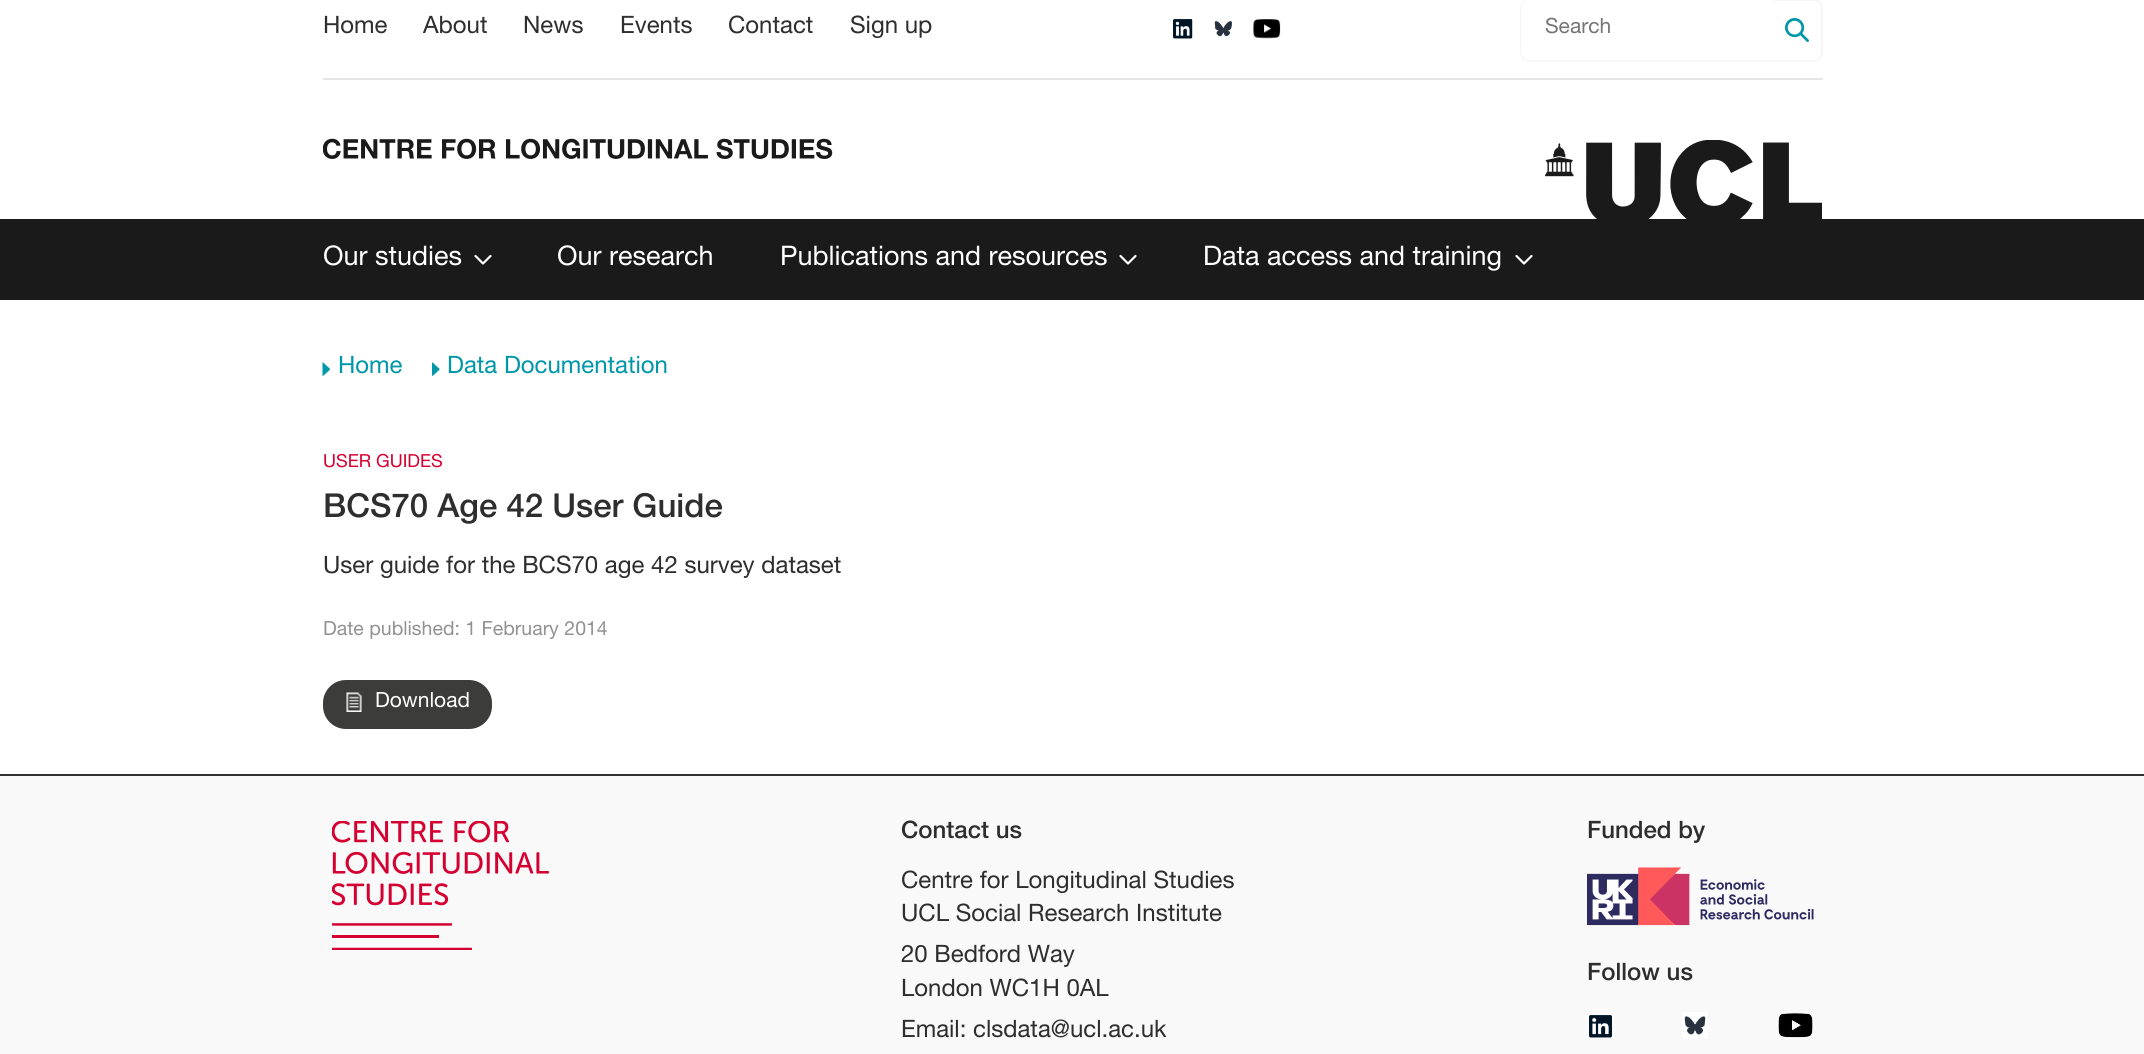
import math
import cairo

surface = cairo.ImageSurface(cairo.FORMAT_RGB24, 2144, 1054)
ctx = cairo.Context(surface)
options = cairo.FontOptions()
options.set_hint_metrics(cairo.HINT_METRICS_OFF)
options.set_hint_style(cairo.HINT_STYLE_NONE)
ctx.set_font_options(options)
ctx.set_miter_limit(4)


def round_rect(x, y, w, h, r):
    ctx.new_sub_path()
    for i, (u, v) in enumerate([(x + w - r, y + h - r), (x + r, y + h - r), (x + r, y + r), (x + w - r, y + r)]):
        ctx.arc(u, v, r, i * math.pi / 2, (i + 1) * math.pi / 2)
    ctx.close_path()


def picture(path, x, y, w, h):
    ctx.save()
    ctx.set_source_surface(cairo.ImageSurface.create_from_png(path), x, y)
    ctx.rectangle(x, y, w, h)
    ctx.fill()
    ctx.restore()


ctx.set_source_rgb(1, 1, 1)
ctx.paint()
ctx.set_source_rgb(0.902, 0.902, 0.902)
ctx.rectangle(323, 78, 1500, 2)
ctx.fill()
ctx.select_font_face("Helvetica Neue")
ctx.set_font_size(24)
ctx.set_source_rgb(0.18, 0.18, 0.18)
ctx.move_to(323, 33)
ctx.show_text("Home")
ctx.move_to(423, 33)
ctx.show_text("About")
ctx.move_to(523, 33)
ctx.show_text("News")
ctx.move_to(620, 33)
ctx.show_text("Events")
ctx.move_to(728, 33)
ctx.show_text("Contact")
ctx.move_to(850, 33)
ctx.show_text("Sign up")
picture("img1.png", 1173, 19, 20, 20)
picture("img2.png", 1214, 21, 18, 16)
picture("img3.png", 1253, 19, 28, 20)
round_rect(1521, 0, 301, 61, 8)
ctx.set_source_rgb(0.961, 0.961, 0.961)
ctx.stroke()
ctx.set_source_rgb(1, 1, 1)
ctx.new_path()
ctx.move_to(1529, 0)
ctx.line_to(1773, 0)
ctx.line_to(1773, 60)
ctx.line_to(1529, 60)
ctx.curve_to(1524.5, 60, 1521, 56.5, 1521, 52)
ctx.line_to(1521, 8)
ctx.curve_to(1521, 3.5, 1524.5, 0, 1529, 0)
ctx.close_path()
ctx.fill()
ctx.set_font_size(21)
ctx.set_source_rgb(0.459, 0.459, 0.459)
ctx.move_to(1545, 33)
ctx.show_text("Search")
picture("img4.png", 1785, 18, 24, 24)
picture("img5.png", 323, 138, 510, 21)
picture("img6.png", 1545, 140, 277, 79)
ctx.set_source_rgb(0.102, 0.102, 0.102)
ctx.rectangle(0, 219, 2144, 81)
ctx.fill()
ctx.set_font_size(27)
ctx.set_source_rgb(1, 1, 1)
ctx.move_to(323, 265)
ctx.show_text("Our studies")
ctx.new_path()
ctx.move_to(490.5, 256)
ctx.line_to(483, 263.5)
ctx.line_to(475.5, 256)
ctx.set_line_width(2.2)
ctx.set_line_cap(cairo.LINE_CAP_ROUND)
ctx.set_line_join(cairo.LINE_JOIN_ROUND)
ctx.stroke()
ctx.move_to(557, 265)
ctx.show_text("Our research")
ctx.move_to(780, 265)
ctx.show_text("Publications and resources")
ctx.new_path()
ctx.move_to(1135.5, 256)
ctx.line_to(1128, 263.5)
ctx.line_to(1120.5, 256)
ctx.stroke()
ctx.move_to(1203, 265)
ctx.show_text("Data access and training")
ctx.new_path()
ctx.move_to(1531.5, 256)
ctx.line_to(1524, 263.5)
ctx.line_to(1516.5, 256)
ctx.stroke()
picture("img7.png", 322, 362, 8, 14)
ctx.set_font_size(24)
ctx.set_source_rgb(0, 0.592, 0.663)
ctx.move_to(338, 373)
ctx.show_text("Home")
picture("img8.png", 432, 362, 8, 14)
ctx.move_to(447, 373)
ctx.show_text("Data Documentation")
ctx.set_font_size(18)
ctx.set_source_rgb(0.835, 0, 0.196)
ctx.move_to(323, 467)
ctx.show_text("USER GUIDES")
ctx.select_font_face("Helvetica Neue Medium")
ctx.set_font_size(33)
ctx.set_source_rgb(0.18, 0.18, 0.18)
ctx.move_to(323, 517)
ctx.show_text("BCS70 Age 42 User Guide")
ctx.select_font_face("Helvetica Neue")
ctx.set_font_size(24)
ctx.move_to(323, 573)
ctx.show_text("User guide for the BCS70 age 42 survey dataset")
ctx.set_font_size(19.5)
ctx.set_source_rgb(0.573, 0.573, 0.573)
ctx.move_to(323, 635)
ctx.show_text("Date published: 1 February 2014")
ctx.set_source_rgb(0.235, 0.235, 0.231)
round_rect(323, 680, 169, 49, 23)
ctx.fill()
picture("img9.png", 346, 692, 16, 20)
ctx.set_font_size(21)
ctx.set_source_rgb(1, 1, 1)
ctx.move_to(375, 707)
ctx.show_text("Download")
ctx.set_source_rgb(0.976, 0.976, 0.976)
ctx.rectangle(0, 776, 2144, 278)
ctx.fill()
ctx.set_source_rgb(0.2, 0.2, 0.2)
ctx.rectangle(0, 774, 2144, 2)
ctx.fill()
picture("img10.png", 332, 821, 217, 129)
ctx.select_font_face("Helvetica Neue Medium")
ctx.set_font_size(24)
ctx.set_source_rgb(0.18, 0.18, 0.18)
ctx.move_to(901, 838)
ctx.show_text("Contact us")
ctx.select_font_face("Helvetica Neue")
ctx.move_to(901, 888)
ctx.show_text("Centre for Longitudinal Studies")
ctx.move_to(901, 921)
ctx.show_text("UCL Social Research Institute")
ctx.move_to(901, 962)
ctx.show_text("20 Bedford Way")
ctx.move_to(901, 996)
ctx.show_text("London WC1H 0AL")
ctx.move_to(901, 1037)
ctx.show_text("Email:")
ctx.move_to(973, 1037)
ctx.show_text("clsdata@ucl.ac.uk")
ctx.select_font_face("Helvetica Neue Medium")
ctx.move_to(1587, 838)
ctx.show_text("Funded by")
picture("img11.png", 1587, 867, 227, 59)
ctx.move_to(1587, 980)
ctx.show_text("Follow us")
picture("img12.png", 1587, 1015, 27, 23)
picture("img13.png", 1682, 1012, 26, 27)
picture("img14.png", 1778, 1013, 35, 25)
surface.write_to_png("page.png")
